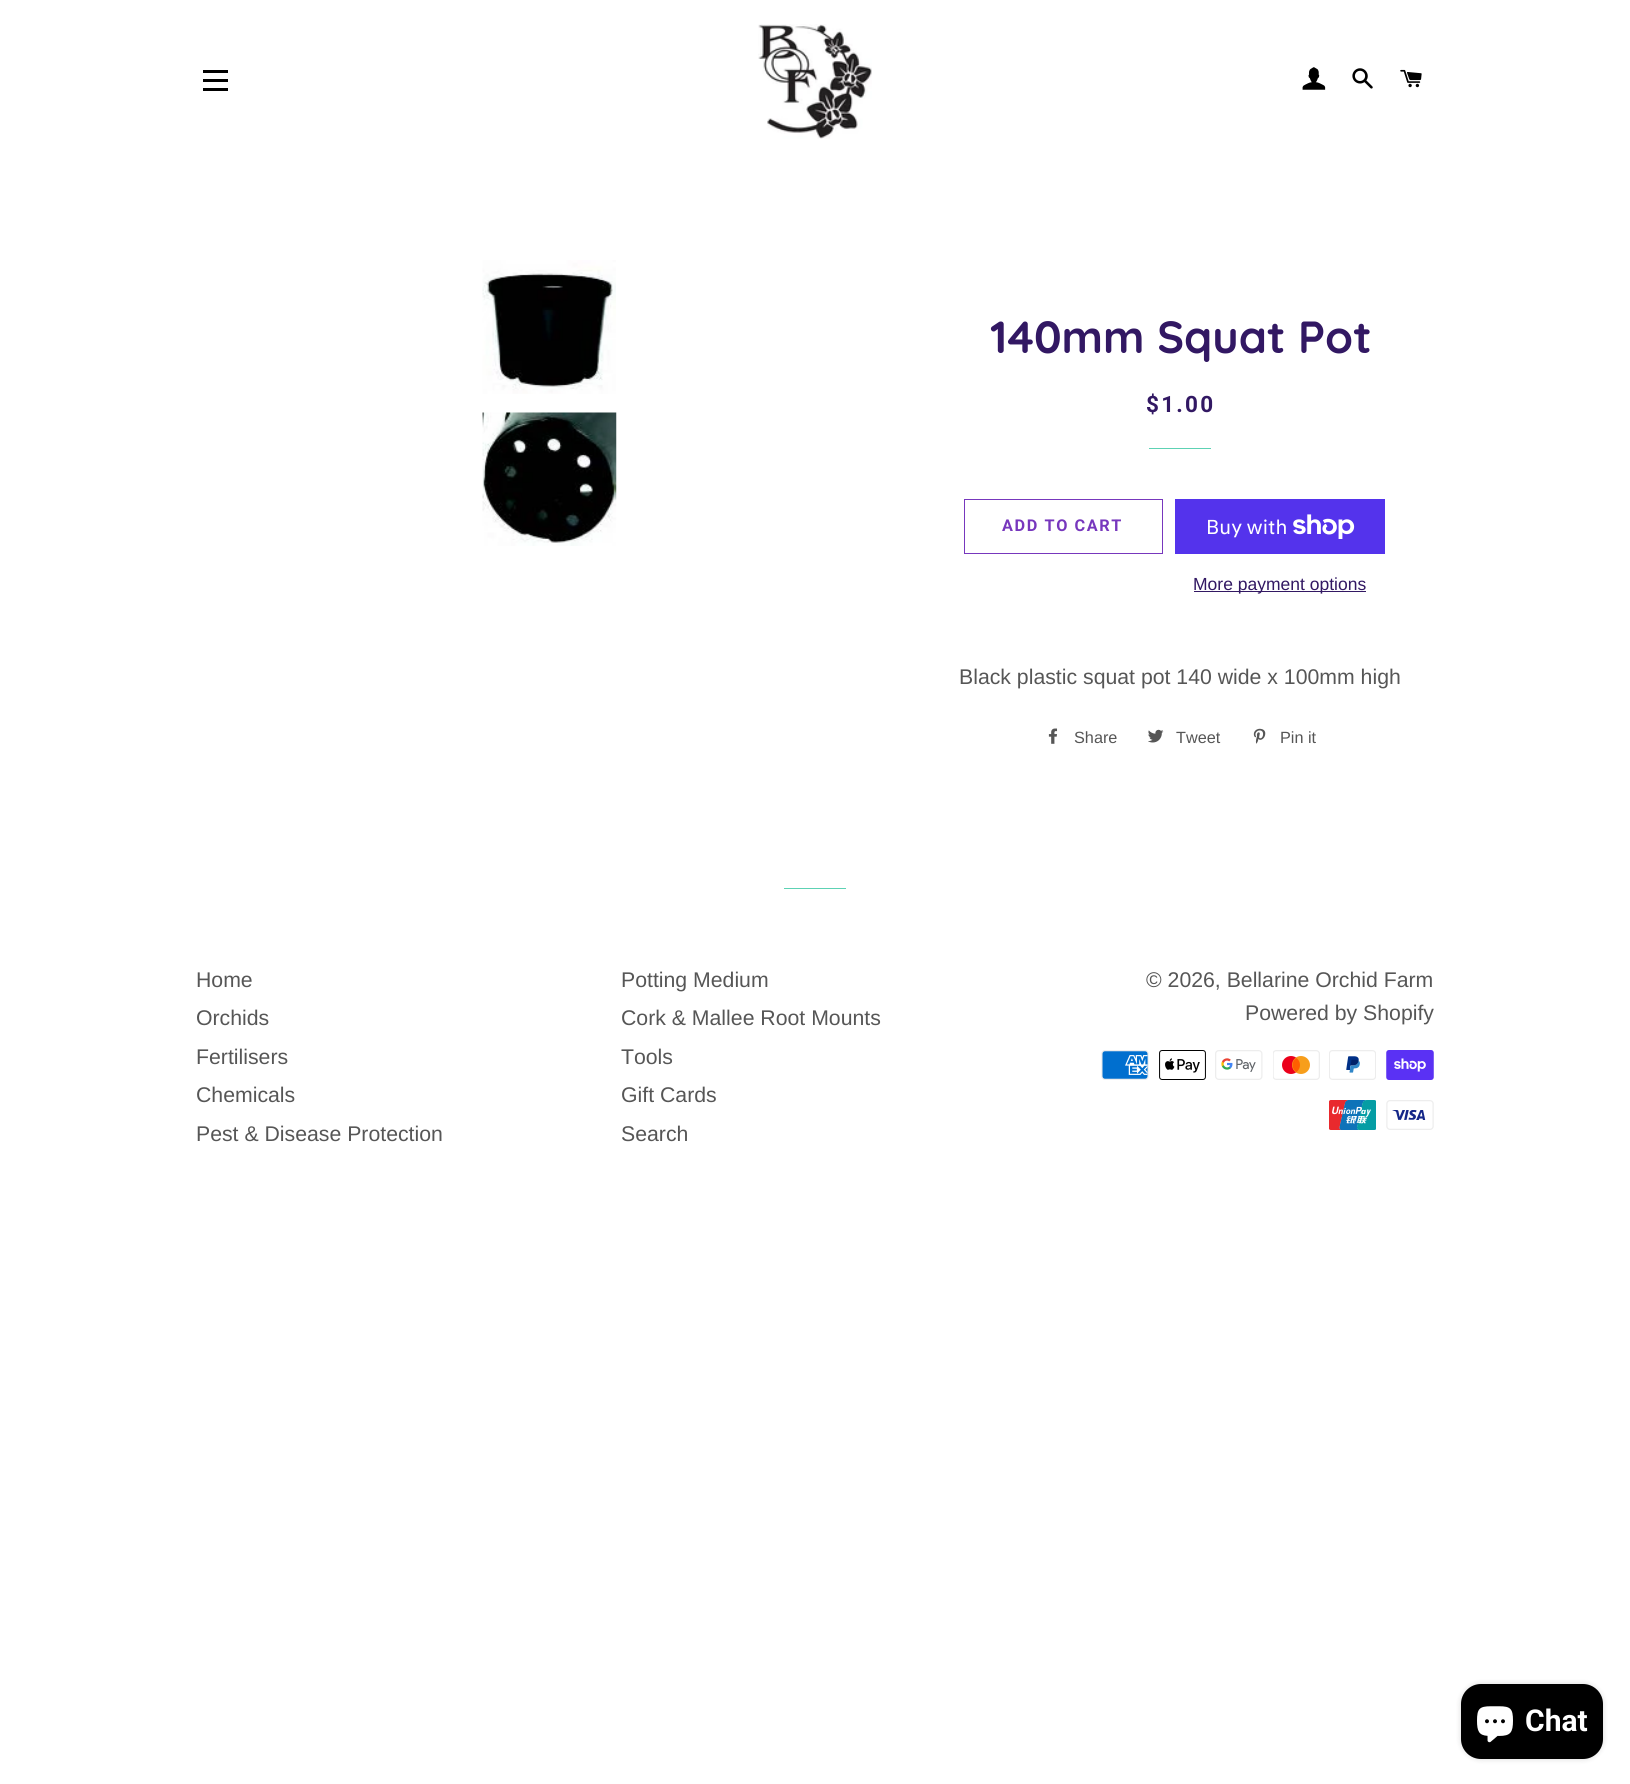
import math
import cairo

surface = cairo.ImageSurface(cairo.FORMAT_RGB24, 1630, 1784)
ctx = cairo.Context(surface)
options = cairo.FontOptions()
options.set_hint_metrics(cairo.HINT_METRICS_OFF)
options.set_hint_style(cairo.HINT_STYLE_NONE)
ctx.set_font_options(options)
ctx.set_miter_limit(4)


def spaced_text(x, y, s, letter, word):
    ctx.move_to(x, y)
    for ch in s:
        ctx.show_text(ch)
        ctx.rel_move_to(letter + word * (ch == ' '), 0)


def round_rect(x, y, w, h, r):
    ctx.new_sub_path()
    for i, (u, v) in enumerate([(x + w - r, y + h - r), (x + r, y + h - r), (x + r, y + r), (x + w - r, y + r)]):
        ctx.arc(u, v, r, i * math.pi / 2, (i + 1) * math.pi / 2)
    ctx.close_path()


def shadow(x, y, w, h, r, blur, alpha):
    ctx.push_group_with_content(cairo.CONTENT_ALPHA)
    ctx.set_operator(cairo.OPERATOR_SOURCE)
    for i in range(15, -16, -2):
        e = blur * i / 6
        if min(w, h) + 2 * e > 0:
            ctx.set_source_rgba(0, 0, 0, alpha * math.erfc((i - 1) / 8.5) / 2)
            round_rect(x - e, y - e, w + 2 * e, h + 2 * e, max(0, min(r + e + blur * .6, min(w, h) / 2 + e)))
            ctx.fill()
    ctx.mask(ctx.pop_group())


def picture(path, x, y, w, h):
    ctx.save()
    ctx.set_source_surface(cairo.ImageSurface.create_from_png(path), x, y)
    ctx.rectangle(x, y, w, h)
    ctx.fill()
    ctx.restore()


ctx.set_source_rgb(1, 1, 1)
ctx.paint()
ctx.set_source_rgb(0, 0, 0)
ctx.rectangle(203, 70, 25, 3)
ctx.fill()
ctx.rectangle(203, 79, 25, 3)
ctx.fill()
ctx.rectangle(203, 88, 25, 3)
ctx.fill()
picture("img1.png", 758, 24, 114, 115)
picture("img2.png", 1302, 67, 24, 23)
picture("img3.png", 1352, 68, 21, 21)
picture("img4.png", 1400, 69, 22, 19)
picture("img5.png", 482, 260, 134, 134)
picture("img6.png", 482, 412, 135, 134)
ctx.select_font_face("Quicksand", cairo.FONT_SLANT_NORMAL, cairo.FONT_WEIGHT_BOLD)
ctx.set_font_size(45)
ctx.set_source_rgb(0.196, 0.094, 0.388)
ctx.move_to(990, 353)
ctx.show_text("140mm Squat Pot")
ctx.select_font_face("Roboto", cairo.FONT_SLANT_NORMAL, cairo.FONT_WEIGHT_BOLD)
ctx.set_font_size(22.5)
spaced_text(1146, 412, "$1.00", 2.25, 0)
ctx.set_source_rgb(0.365, 0.824, 0.706)
ctx.rectangle(1149, 448, 62, 1)
ctx.fill()
ctx.rectangle(964.5, 499.5, 198, 54)
ctx.set_source_rgb(0.467, 0.216, 0.741)
ctx.set_line_width(1)
ctx.stroke()
ctx.set_font_size(16.25)
spaced_text(1002, 531, "ADD TO CART", 1.6, 0)
ctx.set_source_rgb(0.329, 0.2, 0.922)
ctx.rectangle(1175, 499, 210, 55)
ctx.fill()
ctx.select_font_face("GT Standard")
ctx.set_font_size(20)
ctx.set_source_rgb(1, 1, 1)
ctx.move_to(1206, 534)
ctx.show_text("Buy with")
picture("img7.png", 1293, 514, 62, 25)
ctx.set_source_rgb(0.196, 0.094, 0.388)
ctx.rectangle(1194, 591, 172, 1)
ctx.fill()
ctx.select_font_face("Liberation Sans")
ctx.set_font_size(17.5)
ctx.move_to(1193, 590)
ctx.show_text("More payment options")
ctx.set_font_size(21.25)
ctx.set_source_rgb(0.337, 0.337, 0.337)
ctx.move_to(959, 684)
ctx.show_text("Black plastic squat pot 140 wide x 100mm high")
picture("img8.png", 1048, 728, 10, 16)
ctx.set_font_size(16.25)
ctx.move_to(1074, 743)
ctx.show_text("Share")
picture("img9.png", 1148, 729, 16, 14)
ctx.move_to(1176, 743)
ctx.show_text("Tweet")
picture("img10.png", 1253, 728, 13, 16)
ctx.move_to(1280, 743)
ctx.show_text("Pin it")
ctx.set_source_rgb(0.365, 0.824, 0.706)
ctx.rectangle(784, 888, 62, 1)
ctx.fill()
ctx.set_font_size(21.25)
ctx.set_source_rgb(0.337, 0.337, 0.337)
ctx.move_to(196, 987)
ctx.show_text("Home")
ctx.move_to(196, 1025)
ctx.show_text("Orchids")
ctx.move_to(196, 1064)
ctx.show_text("Fertilisers")
ctx.move_to(196, 1102)
ctx.show_text("Chemicals")
ctx.move_to(196, 1141)
ctx.show_text("Pest & Disease Protection")
ctx.move_to(621, 987)
ctx.show_text("Potting Medium")
ctx.move_to(621, 1025)
ctx.show_text("Cork & Mallee Root Mounts")
ctx.move_to(621, 1064)
ctx.show_text("Tools")
ctx.move_to(621, 1102)
ctx.show_text("Gift Cards")
ctx.move_to(621, 1141)
ctx.show_text("Search")
ctx.move_to(1146, 987)
ctx.show_text("© 2026, Bellarine Orchid Farm")
ctx.move_to(1245, 1020)
ctx.show_text("Powered by Shopify")
picture("img11.png", 1101, 1050, 48, 30)
picture("img12.png", 1159, 1050, 47, 30)
picture("img13.png", 1215, 1050, 48, 30)
picture("img14.png", 1273, 1050, 47, 30)
picture("img15.png", 1329, 1050, 47, 30)
picture("img16.png", 1386, 1050, 48, 30)
picture("img17.png", 1329, 1100, 47, 30)
picture("img18.png", 1386, 1100, 48, 30)
ctx.set_source_rgb(0, 0, 0)
shadow(1461, 1684, 142, 75, 20, 3, 0.15)
ctx.set_source_rgb(0, 0, 0)
round_rect(1461, 1684, 142, 75, 20)
ctx.fill()
picture("img19.png", 1477, 1706, 36, 37)
ctx.select_font_face("Roboto", cairo.FONT_SLANT_NORMAL, cairo.FONT_WEIGHT_BOLD)
ctx.set_font_size(30)
ctx.set_source_rgb(1, 1, 1)
ctx.move_to(1525, 1731)
ctx.show_text("Chat")
surface.write_to_png("page.png")
